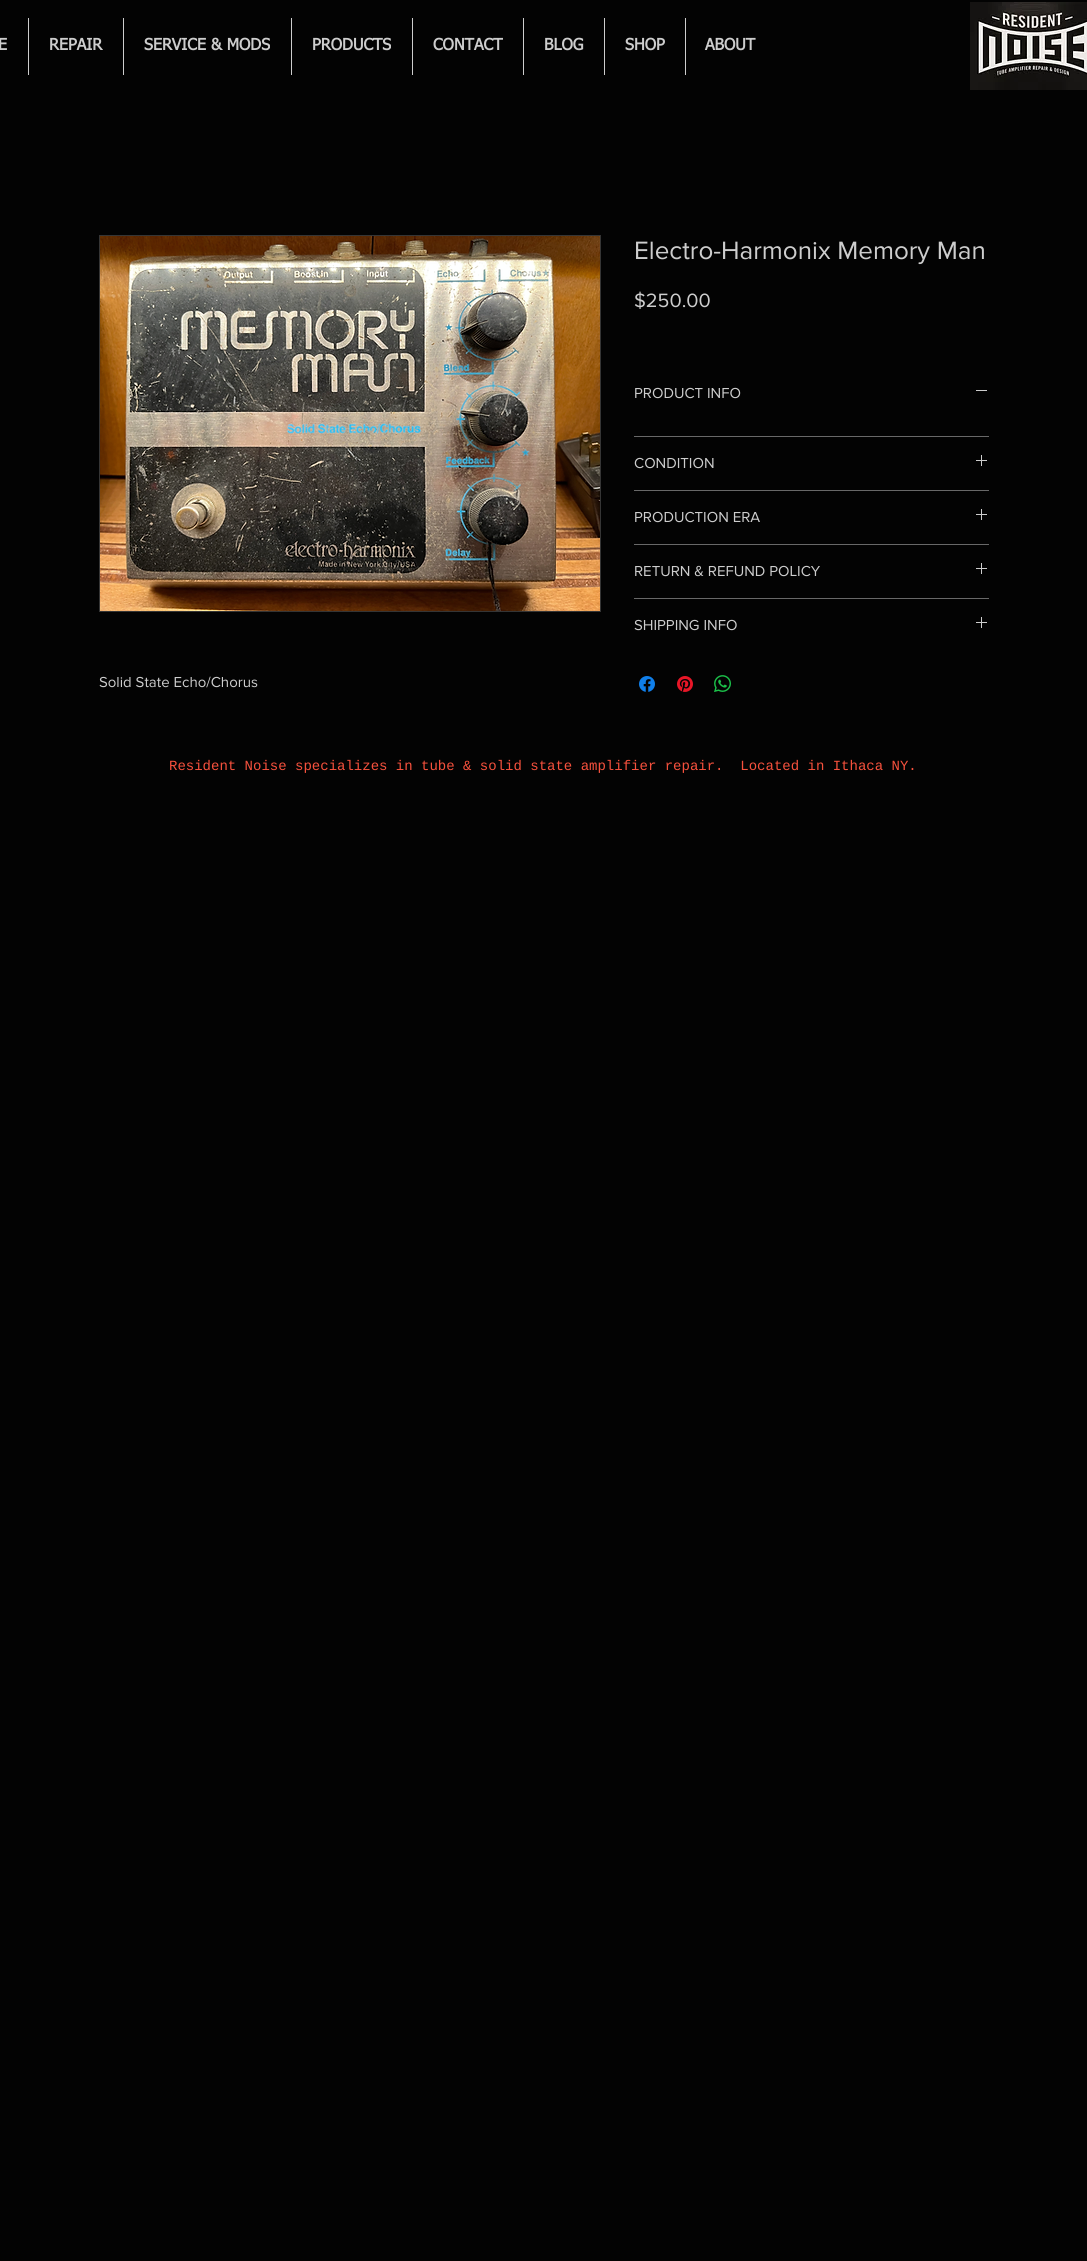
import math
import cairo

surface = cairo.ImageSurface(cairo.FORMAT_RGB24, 1087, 2261)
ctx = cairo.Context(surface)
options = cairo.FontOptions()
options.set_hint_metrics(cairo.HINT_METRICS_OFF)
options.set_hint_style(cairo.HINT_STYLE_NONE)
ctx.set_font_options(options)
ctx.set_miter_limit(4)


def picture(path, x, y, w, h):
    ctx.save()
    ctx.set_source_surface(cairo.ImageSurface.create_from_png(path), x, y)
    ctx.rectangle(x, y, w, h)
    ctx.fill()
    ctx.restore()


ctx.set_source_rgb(0.012, 0.012, 0.012)
ctx.paint()
ctx.select_font_face("tahoma", cairo.FONT_SLANT_NORMAL, cairo.FONT_WEIGHT_BOLD)
ctx.set_font_size(16)
ctx.set_source_rgb(0.804, 0.804, 0.804)
ctx.move_to(-2, 50)
ctx.show_text("E")
ctx.rectangle(28, 18, 1, 57)
ctx.fill()
ctx.move_to(49, 50)
ctx.show_text("REPAIR")
ctx.rectangle(123, 18, 1, 57)
ctx.fill()
ctx.move_to(144, 50)
ctx.show_text("SERVICE & MODS")
ctx.rectangle(291, 18, 1, 57)
ctx.fill()
ctx.move_to(312, 50)
ctx.show_text("PRODUCTS")
ctx.rectangle(412, 18, 1, 57)
ctx.fill()
ctx.move_to(433, 50)
ctx.show_text("CONTACT")
ctx.rectangle(523, 18, 1, 57)
ctx.fill()
ctx.move_to(544, 50)
ctx.show_text("BLOG")
ctx.rectangle(604, 18, 1, 57)
ctx.fill()
ctx.move_to(625, 50)
ctx.show_text("SHOP")
ctx.rectangle(685, 18, 1, 57)
ctx.fill()
ctx.move_to(705, 50)
ctx.show_text("ABOUT")
picture("img1.png", 970, 2, 117, 88)
ctx.select_font_face("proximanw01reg")
ctx.set_font_size(26)
ctx.move_to(634, 259)
ctx.show_text("Electro-Harmonix Memory Man")
ctx.set_font_size(20)
ctx.move_to(634, 307)
ctx.show_text("$250.00")
ctx.set_source_rgb(0.408, 0.408, 0.408)
ctx.rectangle(634, 436, 355, 1)
ctx.fill()
ctx.set_font_size(15)
ctx.set_source_rgb(0.804, 0.804, 0.804)
ctx.move_to(634, 398)
ctx.show_text("PRODUCT INFO")
ctx.rectangle(976, 390, 11, 1)
ctx.fill()
ctx.set_source_rgb(0.408, 0.408, 0.408)
ctx.rectangle(634, 490, 355, 1)
ctx.fill()
ctx.set_source_rgb(0.804, 0.804, 0.804)
ctx.move_to(634, 468)
ctx.show_text("CONDITION")
picture("img2.png", 976, 455, 11, 11)
ctx.set_source_rgb(0.408, 0.408, 0.408)
ctx.rectangle(634, 544, 355, 1)
ctx.fill()
ctx.set_source_rgb(0.804, 0.804, 0.804)
ctx.move_to(634, 522)
ctx.show_text("PRODUCTION ERA")
picture("img2.png", 976, 509, 11, 11)
ctx.set_source_rgb(0.408, 0.408, 0.408)
ctx.rectangle(634, 598, 355, 1)
ctx.fill()
ctx.set_source_rgb(0.804, 0.804, 0.804)
ctx.move_to(634, 576)
ctx.show_text("RETURN & REFUND POLICY")
picture("img2.png", 976, 563, 11, 11)
ctx.move_to(634, 630)
ctx.show_text("SHIPPING INFO")
picture("img2.png", 976, 617, 11, 11)
picture("img3.png", 639, 676, 16, 16)
picture("img4.png", 677, 676, 16, 16)
picture("img5.png", 714, 675, 17, 17)
ctx.rectangle(99.5, 235.5, 501, 376)
ctx.set_source_rgb(0.208, 0.208, 0.208)
ctx.set_line_width(1)
ctx.stroke()
picture("img6.png", 100, 236, 500, 375)
ctx.set_source_rgb(0.804, 0.804, 0.804)
ctx.move_to(99, 687)
ctx.show_text("Solid State Echo/Chorus")
ctx.select_font_face("Liberation Mono")
ctx.set_font_size(14)
ctx.set_source_rgb(0.965, 0.318, 0.239)
ctx.move_to(169, 770)
ctx.show_text("Resident Noise specializes in tube & solid state amplifier repair.  Located in Ithaca NY.")
surface.write_to_png("page.png")
